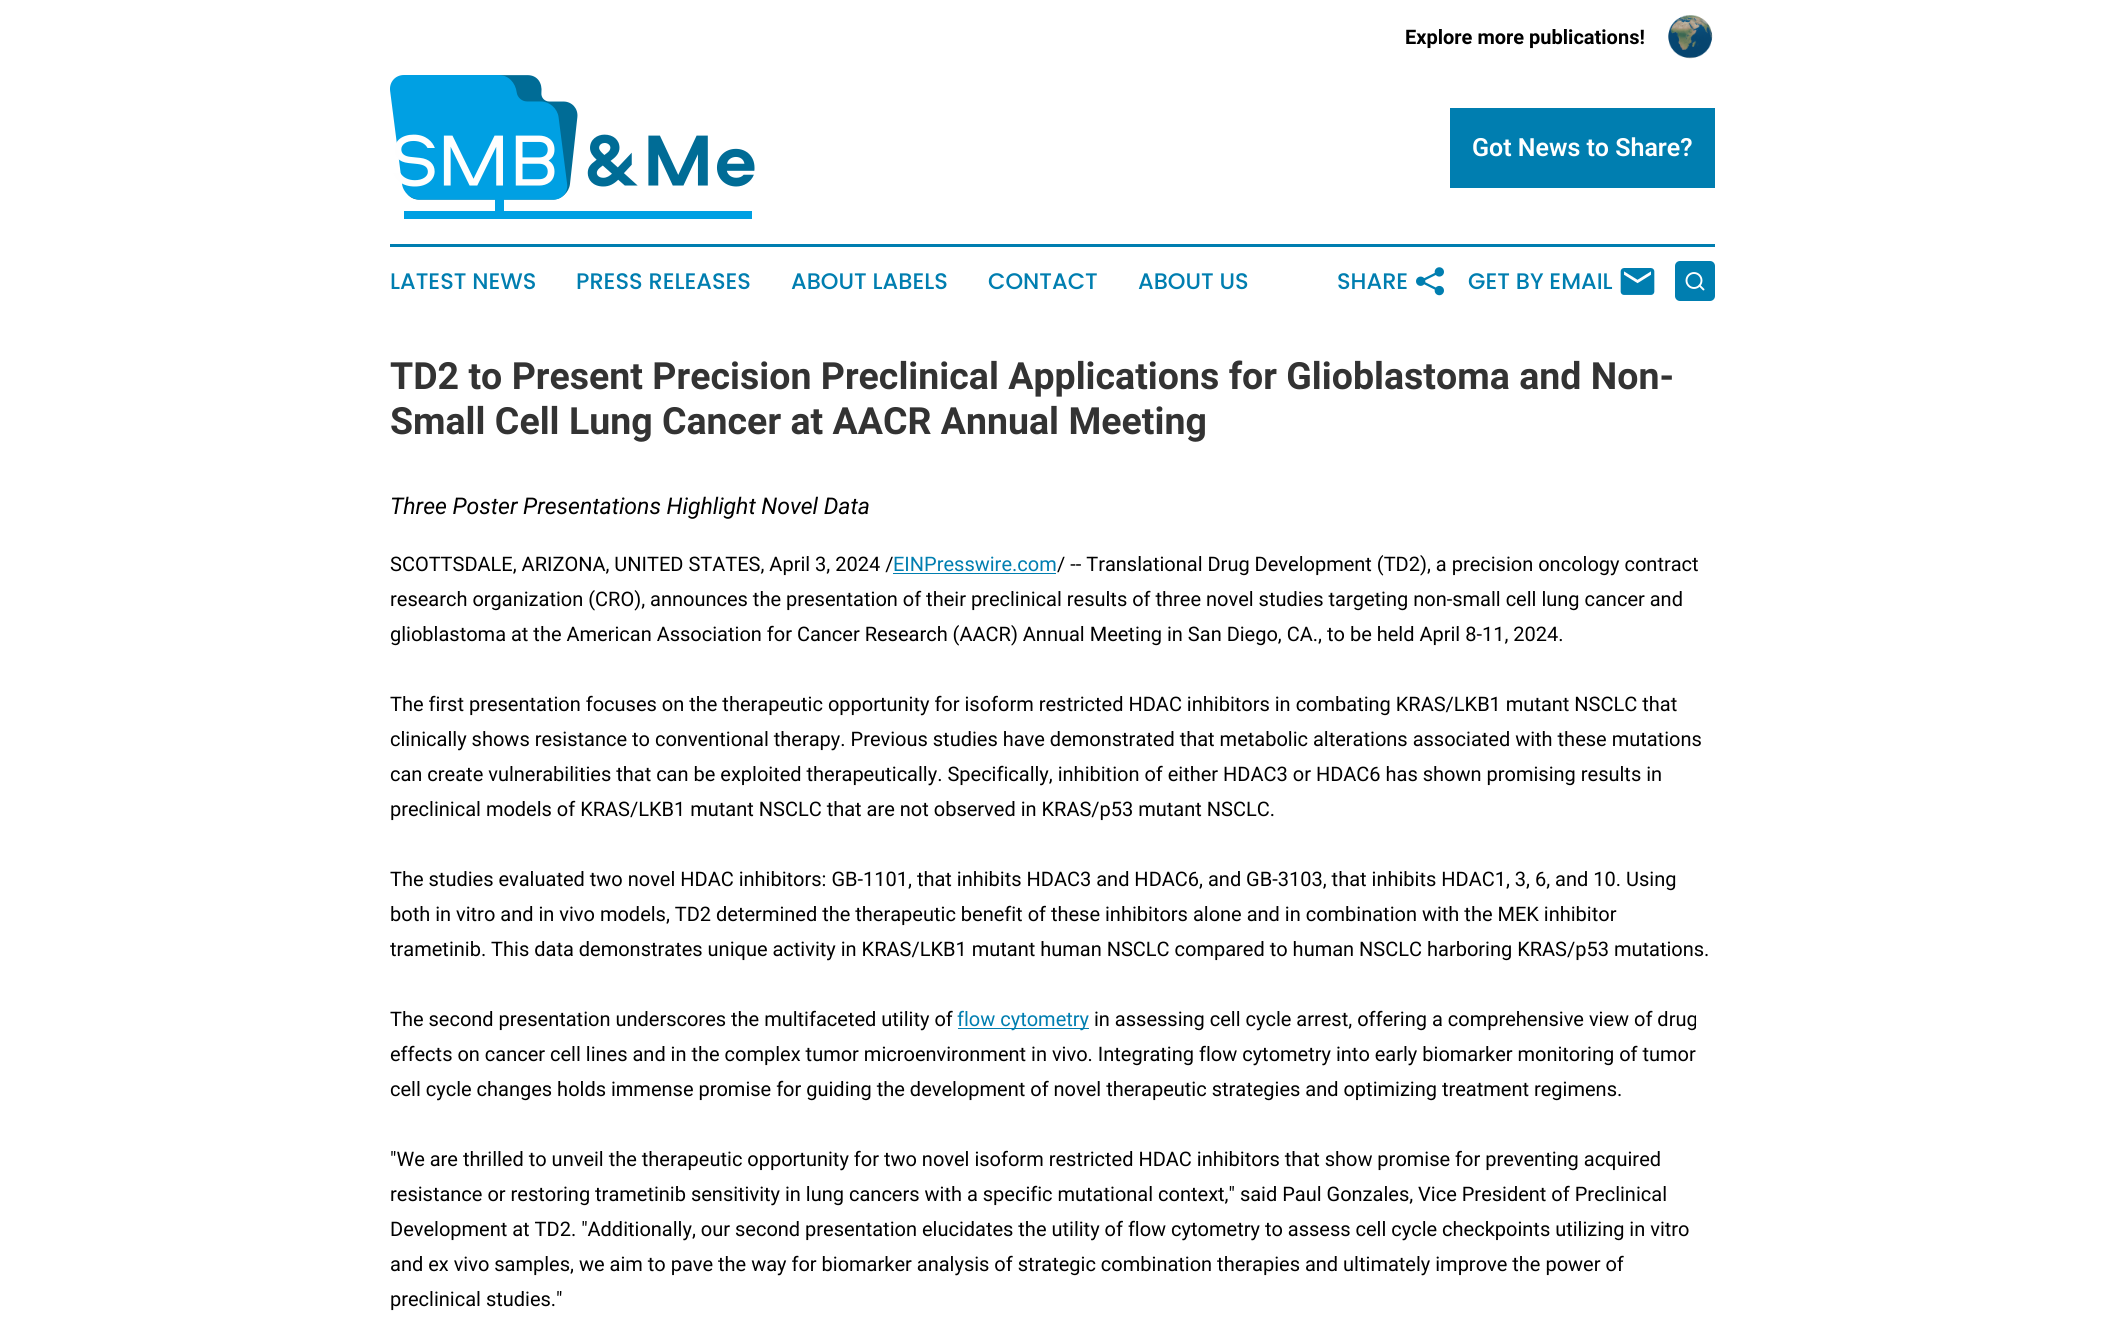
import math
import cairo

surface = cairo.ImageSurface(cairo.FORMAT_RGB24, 2104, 1338)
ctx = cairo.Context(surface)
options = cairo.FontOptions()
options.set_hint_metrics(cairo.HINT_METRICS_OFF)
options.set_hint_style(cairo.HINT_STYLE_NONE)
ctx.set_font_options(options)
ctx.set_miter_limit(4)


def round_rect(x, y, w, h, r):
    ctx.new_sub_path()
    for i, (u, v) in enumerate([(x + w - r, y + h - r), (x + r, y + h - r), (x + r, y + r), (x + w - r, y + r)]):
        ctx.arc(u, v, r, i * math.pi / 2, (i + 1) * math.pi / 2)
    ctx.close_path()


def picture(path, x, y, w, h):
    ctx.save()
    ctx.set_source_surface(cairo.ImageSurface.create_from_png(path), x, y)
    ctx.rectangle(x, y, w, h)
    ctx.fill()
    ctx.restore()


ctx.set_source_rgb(1, 1, 1)
ctx.paint()
ctx.select_font_face("Roboto", cairo.FONT_SLANT_NORMAL, cairo.FONT_WEIGHT_BOLD)
ctx.set_font_size(20)
ctx.set_source_rgb(0, 0, 0)
ctx.move_to(1405, 44)
ctx.show_text("Explore more publications!")
picture("img1.png", 1668, 15, 45, 44)
picture("img2.png", 390, 75, 365, 144)
ctx.set_source_rgb(0, 0.494, 0.69)
ctx.rectangle(1450, 108, 265, 80)
ctx.fill()
ctx.select_font_face("Roboto SemiBold")
ctx.set_font_size(25)
ctx.set_source_rgb(1, 1, 1)
ctx.move_to(1472, 156)
ctx.show_text("Got News to Share?")
ctx.set_source_rgb(0, 0.494, 0.69)
ctx.rectangle(390, 244, 1325, 3)
ctx.fill()
ctx.select_font_face("Poppins Medium")
ctx.set_font_size(22.5)
ctx.move_to(390, 289)
ctx.show_text("LATEST NEWS")
ctx.move_to(576, 289)
ctx.show_text("PRESS RELEASES")
ctx.move_to(791, 289)
ctx.show_text("ABOUT LABELS")
ctx.move_to(988, 289)
ctx.show_text("CONTACT")
ctx.move_to(1138, 289)
ctx.show_text("ABOUT US")
ctx.move_to(1337, 289)
ctx.show_text("SHARE")
picture("img3.png", 1416, 267, 28, 29)
ctx.move_to(1468, 289)
ctx.show_text("GET BY EMAIL")
picture("img4.png", 1620, 268, 35, 27)
round_rect(1675, 261, 40, 40, 5)
ctx.fill()
ctx.arc(1694, 280.5, 7.5, 0, 2 * math.pi)
ctx.set_source_rgb(1, 1, 1)
ctx.set_line_width(1.9)
ctx.stroke()
ctx.new_path()
ctx.move_to(1703.5, 289.5)
ctx.line_to(1699.5, 285.5)
ctx.set_line_cap(cairo.LINE_CAP_ROUND)
ctx.set_line_join(cairo.LINE_JOIN_ROUND)
ctx.stroke()
ctx.select_font_face("Roboto", cairo.FONT_SLANT_NORMAL, cairo.FONT_WEIGHT_BOLD)
ctx.set_font_size(37.5)
ctx.set_source_rgb(0.2, 0.2, 0.2)
ctx.move_to(390, 389)
ctx.show_text("TD2 to Present Precision Preclinical Applications for Glioblastoma and Non-")
ctx.move_to(390, 434)
ctx.show_text("Small Cell Lung Cancer at AACR Annual Meeting")
ctx.select_font_face("Roboto", cairo.FONT_SLANT_ITALIC)
ctx.set_font_size(23)
ctx.set_source_rgb(0, 0, 0)
ctx.move_to(390, 514)
ctx.show_text("Three Poster Presentations Highlight Novel Data")
ctx.select_font_face("Roboto")
ctx.set_font_size(20)
ctx.move_to(390, 571)
ctx.show_text("SCOTTSDALE, ARIZONA, UNITED STATES, April 3, 2024 /")
ctx.set_source_rgb(0, 0.494, 0.69)
ctx.move_to(893, 571)
ctx.show_text("EINPresswire.com")
ctx.rectangle(893, 573, 163, 1)
ctx.fill()
ctx.set_source_rgb(0, 0, 0)
ctx.move_to(1057, 571)
ctx.show_text("/ -- Translational Drug Development (TD2), a precision oncology contract")
ctx.move_to(390, 606)
ctx.show_text("research organization (CRO), announces the presentation of their preclinical results of three novel studies targeting non-small cell lung cancer and")
ctx.move_to(390, 641)
ctx.show_text("glioblastoma at the American Association for Cancer Research (AACR) Annual Meeting in San Diego, CA., to be held April 8-11, 2024.")
ctx.move_to(390, 711)
ctx.show_text("The first presentation focuses on the therapeutic opportunity for isoform restricted HDAC inhibitors in combating KRAS/LKB1 mutant NSCLC that")
ctx.move_to(390, 746)
ctx.show_text("clinically shows resistance to conventional therapy. Previous studies have demonstrated that metabolic alterations associated with these mutations")
ctx.move_to(390, 781)
ctx.show_text("can create vulnerabilities that can be exploited therapeutically. Specifically, inhibition of either HDAC3 or HDAC6 has shown promising results in")
ctx.move_to(390, 816)
ctx.show_text("preclinical models of KRAS/LKB1 mutant NSCLC that are not observed in KRAS/p53 mutant NSCLC.")
ctx.move_to(390, 886)
ctx.show_text("The studies evaluated two novel HDAC inhibitors: GB-1101, that inhibits HDAC3 and HDAC6, and GB-3103, that inhibits HDAC1, 3, 6, and 10. Using")
ctx.move_to(390, 921)
ctx.show_text("both in vitro and in vivo models, TD2 determined the therapeutic benefit of these inhibitors alone and in combination with the MEK inhibitor")
ctx.move_to(390, 956)
ctx.show_text("trametinib. This data demonstrates unique activity in KRAS/LKB1 mutant human NSCLC compared to human NSCLC harboring KRAS/p53 mutations.")
ctx.move_to(390, 1026)
ctx.show_text("The second presentation underscores the multifaceted utility of")
ctx.set_source_rgb(0, 0.494, 0.69)
ctx.rectangle(958, 1028, 131, 1)
ctx.fill()
ctx.move_to(957, 1026)
ctx.show_text("flow cytometry")
ctx.set_source_rgb(0, 0, 0)
ctx.move_to(1094, 1026)
ctx.show_text("in assessing cell cycle arrest, offering a comprehensive view of drug")
ctx.move_to(390, 1061)
ctx.show_text("effects on cancer cell lines and in the complex tumor microenvironment in vivo. Integrating flow cytometry into early biomarker monitoring of tumor")
ctx.move_to(390, 1096)
ctx.show_text("cell cycle changes holds immense promise for guiding the development of novel therapeutic strategies and optimizing treatment regimens.")
ctx.move_to(390, 1166)
ctx.show_text("\"We are thrilled to unveil the therapeutic opportunity for two novel isoform restricted HDAC inhibitors that show promise for preventing acquired")
ctx.move_to(390, 1201)
ctx.show_text("resistance or restoring trametinib sensitivity in lung cancers with a specific mutational context,\" said Paul Gonzales, Vice President of Preclinical")
ctx.move_to(390, 1236)
ctx.show_text("Development at TD2. \"Additionally, our second presentation elucidates the utility of flow cytometry to assess cell cycle checkpoints utilizing in vitro")
ctx.move_to(390, 1271)
ctx.show_text("and ex vivo samples, we aim to pave the way for biomarker analysis of strategic combination therapies and ultimately improve the power of")
ctx.move_to(390, 1306)
ctx.show_text("preclinical studies.\"")
surface.write_to_png("page.png")
